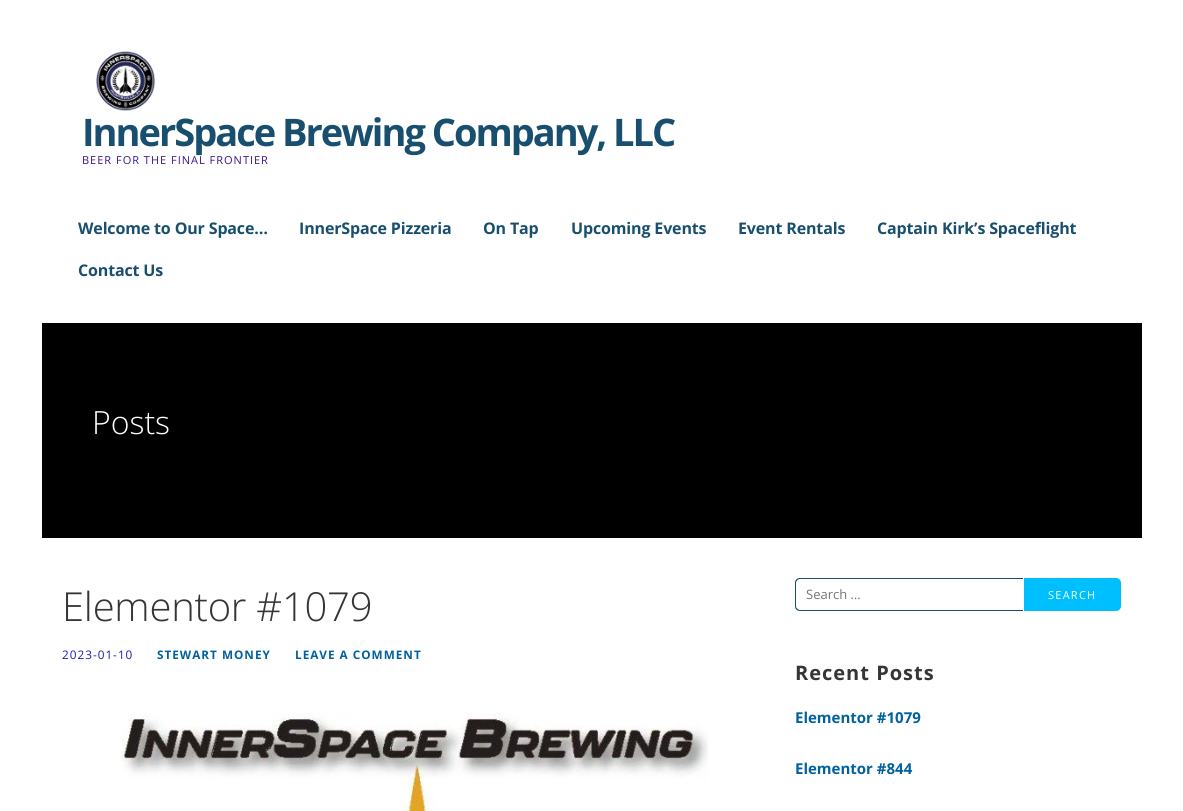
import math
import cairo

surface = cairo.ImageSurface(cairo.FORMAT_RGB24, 1183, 811)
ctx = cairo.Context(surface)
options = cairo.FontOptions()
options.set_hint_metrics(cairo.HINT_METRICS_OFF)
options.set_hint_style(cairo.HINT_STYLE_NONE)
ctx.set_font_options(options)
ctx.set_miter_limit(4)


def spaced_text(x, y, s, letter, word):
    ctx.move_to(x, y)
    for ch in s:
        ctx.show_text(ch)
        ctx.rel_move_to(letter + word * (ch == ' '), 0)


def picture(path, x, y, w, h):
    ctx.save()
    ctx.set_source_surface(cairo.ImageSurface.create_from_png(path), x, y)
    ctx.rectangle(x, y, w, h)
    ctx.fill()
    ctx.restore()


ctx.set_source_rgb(1, 1, 1)
ctx.paint()
picture("img1.png", 96, 51, 60, 60)
ctx.select_font_face("Open Sans", cairo.FONT_SLANT_NORMAL, cairo.FONT_WEIGHT_BOLD)
ctx.set_font_size(38)
ctx.set_source_rgb(0.098, 0.31, 0.431)
spaced_text(82, 146, "InnerSpace Brewing Company, LLC", -2, 0)
ctx.select_font_face("Open Sans")
ctx.set_font_size(11)
ctx.set_source_rgb(0.22, 0.075, 0.557)
spaced_text(82, 164, "BEER FOR THE FINAL FRONTIER", 1, 0)
ctx.select_font_face("Open Sans", cairo.FONT_SLANT_NORMAL, cairo.FONT_WEIGHT_BOLD)
ctx.set_font_size(16)
ctx.set_source_rgb(0.098, 0.31, 0.431)
spaced_text(78, 234, "Welcome to Our Space…", -0.15, 0)
spaced_text(299, 234, "InnerSpace Pizzeria", -0.15, 0)
spaced_text(483, 234, "On Tap", -0.15, 0)
spaced_text(571, 234, "Upcoming Events", -0.15, 0)
spaced_text(738, 234, "Event Rentals", -0.15, 0)
spaced_text(877, 234, "Captain Kirk’s Spaceflight", -0.15, 0)
spaced_text(78, 276, "Contact Us", -0.15, 0)
ctx.set_source_rgb(0, 0, 0)
ctx.rectangle(42, 323, 1100, 215)
ctx.fill()
ctx.select_font_face("Open Sans Light")
ctx.set_font_size(32)
ctx.set_source_rgb(1, 1, 1)
ctx.move_to(92, 434)
ctx.show_text("Posts")
ctx.set_font_size(40)
ctx.set_source_rgb(0.208, 0.208, 0.208)
spaced_text(62, 621, "Elementor #1079", -0.25, 0)
ctx.select_font_face("Open Sans")
ctx.set_font_size(11.75)
ctx.set_source_rgb(0.102, 0.102, 0.698)
spaced_text(62, 659, "2023-01-10", 1, 0)
ctx.select_font_face("Open Sans", cairo.FONT_SLANT_NORMAL, cairo.FONT_WEIGHT_BOLD)
ctx.set_source_rgb(0, 0.38, 0.62)
spaced_text(157, 659, "STEWART MONEY", 1, 0)
spaced_text(295, 659, "LEAVE A COMMENT", 1, 0)
picture("img2.png", 119, 713, 590, 98)
ctx.set_source_rgb(0.098, 0.31, 0.431)
ctx.set_fill_rule(cairo.FILL_RULE_EVEN_ODD)
ctx.new_path()
ctx.move_to(800, 578)
ctx.line_to(1023, 578)
ctx.line_to(1023, 611)
ctx.line_to(800, 611)
ctx.curve_to(797, 611, 795, 609, 795, 606)
ctx.line_to(795, 583)
ctx.curve_to(795, 580, 797, 578, 800, 578)
ctx.close_path()
ctx.move_to(800, 579)
ctx.line_to(1023, 579)
ctx.line_to(1023, 610)
ctx.line_to(800, 610)
ctx.curve_to(798, 610, 796, 608, 796, 606)
ctx.line_to(796, 583)
ctx.curve_to(796, 581, 798, 579, 800, 579)
ctx.close_path()
ctx.fill()
ctx.select_font_face("Open Sans")
ctx.set_font_size(13)
ctx.set_source_rgb(0.459, 0.459, 0.459)
ctx.move_to(806, 599)
ctx.show_text("Search …")
ctx.set_source_rgb(0, 0.749, 1)
ctx.new_path()
ctx.move_to(1024.5, 578.5)
ctx.line_to(1116, 578.5)
ctx.curve_to(1118.5, 578.5, 1120.5, 580.5, 1120.5, 583)
ctx.line_to(1120.5, 606)
ctx.curve_to(1120.5, 608.5, 1118.5, 610.5, 1116, 610.5)
ctx.line_to(1024.5, 610.5)
ctx.close_path()
ctx.fill_preserve()
ctx.set_line_width(1)
ctx.stroke()
ctx.set_font_size(11)
ctx.set_source_rgb(1, 1, 1)
spaced_text(1048, 599, "SEARCH", 1.25, 0)
ctx.select_font_face("Open Sans", cairo.FONT_SLANT_NORMAL, cairo.FONT_WEIGHT_BOLD)
ctx.set_font_size(20)
ctx.set_source_rgb(0.208, 0.208, 0.208)
spaced_text(795, 680, "Recent Posts", 1, 0)
ctx.set_font_size(15)
ctx.set_source_rgb(0, 0.38, 0.62)
ctx.move_to(795, 723)
ctx.show_text("Elementor #1079")
ctx.move_to(795, 774)
ctx.show_text("Elementor #844")
surface.write_to_png("page.png")
